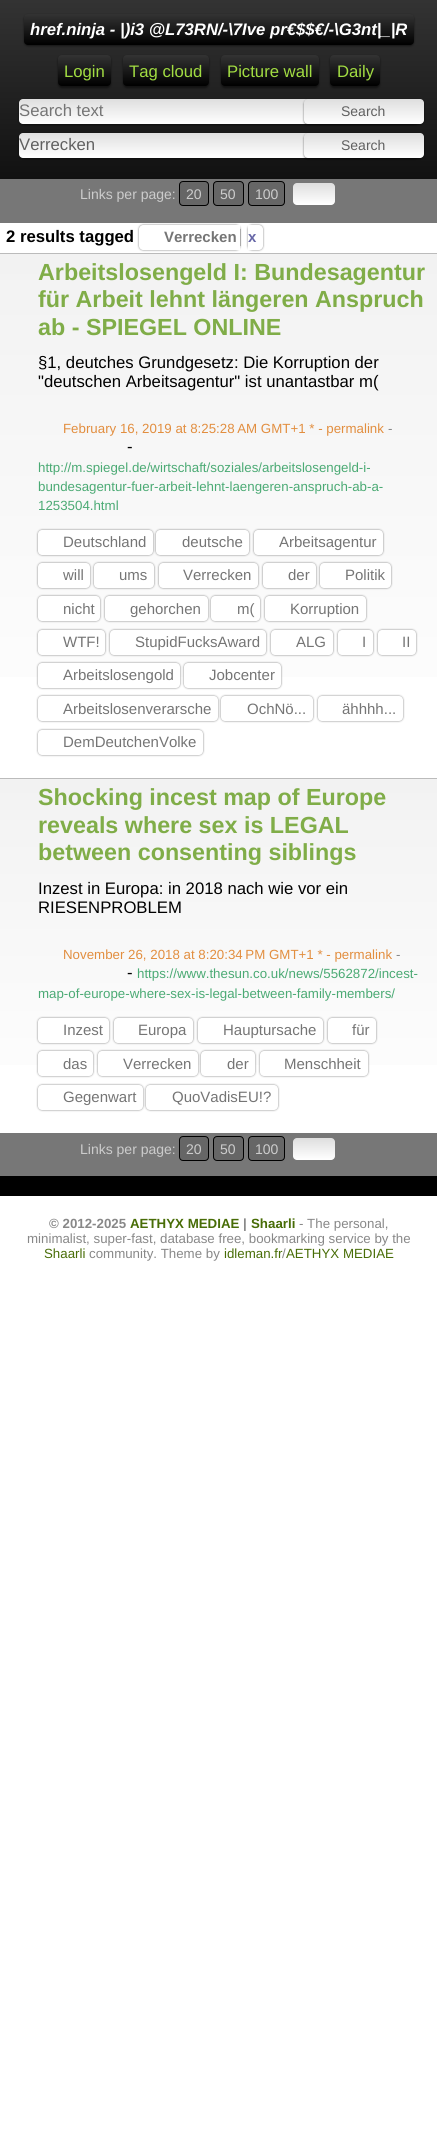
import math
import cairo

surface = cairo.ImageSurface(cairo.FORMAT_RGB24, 437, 2145)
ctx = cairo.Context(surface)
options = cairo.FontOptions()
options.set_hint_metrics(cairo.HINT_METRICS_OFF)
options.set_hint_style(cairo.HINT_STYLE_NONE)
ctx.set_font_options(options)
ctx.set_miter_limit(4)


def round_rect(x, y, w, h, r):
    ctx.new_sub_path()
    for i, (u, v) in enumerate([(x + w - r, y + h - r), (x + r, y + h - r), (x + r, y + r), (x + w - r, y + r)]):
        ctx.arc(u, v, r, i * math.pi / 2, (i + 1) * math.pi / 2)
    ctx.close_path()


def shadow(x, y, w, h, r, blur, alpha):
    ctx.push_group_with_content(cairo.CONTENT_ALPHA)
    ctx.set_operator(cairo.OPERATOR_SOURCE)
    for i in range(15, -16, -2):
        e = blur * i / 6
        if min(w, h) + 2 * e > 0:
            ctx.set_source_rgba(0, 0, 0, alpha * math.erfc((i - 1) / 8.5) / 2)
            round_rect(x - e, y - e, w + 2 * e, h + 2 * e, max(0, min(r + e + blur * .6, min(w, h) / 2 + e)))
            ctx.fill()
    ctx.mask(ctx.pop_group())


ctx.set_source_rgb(1, 1, 1)
ctx.paint()
gradient = cairo.LinearGradient(219, 0, 219, 179)
gradient.add_color_stop_rgba(0, 0.2, 0.2, 0.2, 1)
gradient.add_color_stop_rgba(1, 0.067, 0.067, 0.067, 1)
ctx.set_source(gradient)
ctx.rectangle(0, 0, 437, 179)
ctx.fill()
ctx.set_source_rgb(0, 0, 0)
shadow(24, 15, 390, 31, 4, 1, 0.5)
gradient = cairo.LinearGradient(219, 14, 219, 45)
gradient.add_color_stop_rgba(0, 0.2, 0.2, 0.2, 1)
gradient.add_color_stop_rgba(1, 0, 0, 0, 1)
ctx.set_source(gradient)
round_rect(24, 14, 390, 31, 4)
ctx.fill()
ctx.select_font_face("Liberation Sans", cairo.FONT_SLANT_ITALIC, cairo.FONT_WEIGHT_BOLD)
ctx.set_font_size(16.7)
ctx.set_source_rgb(1, 1, 1)
ctx.move_to(30, 35)
ctx.show_text("href.ninja - |)i3 @L73RN/-\\7Ive pr€$$€/-\\G3nt|_|R")
ctx.set_source_rgb(0, 0, 0)
shadow(58, 56, 53, 32, 4, 1, 0.5)
gradient = cairo.LinearGradient(84, 55, 84, 86)
gradient.add_color_stop_rgba(0, 0.2, 0.2, 0.2, 1)
gradient.add_color_stop_rgba(1, 0, 0, 0, 1)
ctx.set_source(gradient)
round_rect(58, 55, 53, 31, 4)
ctx.fill()
ctx.select_font_face("Liberation Sans")
ctx.set_source_rgb(0.635, 0.867, 0.259)
ctx.move_to(64, 77)
ctx.show_text("Login")
ctx.set_source_rgb(0, 0, 0)
shadow(123, 56, 86, 32, 4, 1, 0.5)
gradient = cairo.LinearGradient(166, 55, 166, 86)
gradient.add_color_stop_rgba(0, 0.2, 0.2, 0.2, 1)
gradient.add_color_stop_rgba(1, 0, 0, 0, 1)
ctx.set_source(gradient)
round_rect(123, 55, 86, 31, 4)
ctx.fill()
ctx.set_source_rgb(0.635, 0.867, 0.259)
ctx.move_to(129, 77)
ctx.show_text("Tag cloud")
ctx.set_source_rgb(0, 0, 0)
shadow(221, 56, 98, 32, 4, 1, 0.5)
gradient = cairo.LinearGradient(270, 55, 270, 86)
gradient.add_color_stop_rgba(0, 0.2, 0.2, 0.2, 1)
gradient.add_color_stop_rgba(1, 0, 0, 0, 1)
ctx.set_source(gradient)
round_rect(221, 55, 98, 31, 4)
ctx.fill()
ctx.set_source_rgb(0.635, 0.867, 0.259)
ctx.move_to(227, 77)
ctx.show_text("Picture wall")
ctx.set_source_rgb(0, 0, 0)
shadow(330, 56, 50, 32, 4, 1, 0.5)
gradient = cairo.LinearGradient(355, 55, 355, 86)
gradient.add_color_stop_rgba(0, 0.2, 0.2, 0.2, 1)
gradient.add_color_stop_rgba(1, 0, 0, 0, 1)
ctx.set_source(gradient)
round_rect(330, 55, 50, 31, 4)
ctx.fill()
ctx.set_source_rgb(0.635, 0.867, 0.259)
ctx.move_to(337, 77)
ctx.show_text("Daily")
ctx.set_source_rgb(0, 0, 0)
shadow(19, 100, 400, 25, 4, 1, 0.5)
gradient = cairo.LinearGradient(219, 99, 219, 124)
gradient.add_color_stop_rgba(0, 0.871, 0.871, 0.871, 1)
gradient.add_color_stop_rgba(1, 1, 1, 1, 1)
ctx.set_source(gradient)
round_rect(19, 99, 400, 25, 4)
ctx.fill()
ctx.set_source_rgb(0.459, 0.459, 0.459)
ctx.move_to(19, 116)
ctx.show_text("Search text")
ctx.set_source_rgb(0, 0, 0)
shadow(304, 100, 120, 25, 4, 1, 0.5)
gradient = cairo.LinearGradient(364, 99, 364, 124)
gradient.add_color_stop_rgba(0, 0.871, 0.871, 0.871, 1)
gradient.add_color_stop_rgba(1, 1, 1, 1, 1)
ctx.set_source(gradient)
round_rect(304, 99, 120, 25, 4)
ctx.fill()
ctx.set_font_size(14)
ctx.set_source_rgb(0.376, 0.376, 0.376)
ctx.move_to(341, 116)
ctx.show_text("Search")
ctx.set_source_rgb(0, 0, 0)
shadow(19, 134, 400, 25, 4, 1, 0.5)
gradient = cairo.LinearGradient(219, 132, 219, 158)
gradient.add_color_stop_rgba(0, 0.871, 0.871, 0.871, 1)
gradient.add_color_stop_rgba(1, 1, 1, 1, 1)
ctx.set_source(gradient)
round_rect(19, 133, 400, 25, 4)
ctx.fill()
ctx.set_font_size(16.7)
ctx.set_source_rgb(0.376, 0.376, 0.376)
ctx.move_to(19, 150)
ctx.show_text("Verrecken")
ctx.set_source_rgb(0, 0, 0)
shadow(304, 134, 120, 25, 4, 1, 0.5)
gradient = cairo.LinearGradient(364, 133, 364, 158)
gradient.add_color_stop_rgba(0, 0.871, 0.871, 0.871, 1)
gradient.add_color_stop_rgba(1, 1, 1, 1, 1)
ctx.set_source(gradient)
round_rect(304, 133, 120, 25, 4)
ctx.fill()
ctx.set_font_size(14)
ctx.set_source_rgb(0.376, 0.376, 0.376)
ctx.move_to(341, 150)
ctx.show_text("Search")
ctx.set_source_rgb(0.467, 0.467, 0.467)
ctx.rectangle(0, 179, 437, 44)
ctx.fill()
ctx.set_source_rgb(0.8, 0.8, 0.8)
ctx.move_to(80, 199)
ctx.show_text("Links per page:")
ctx.set_source_rgb(0.4, 0.4, 0.4)
round_rect(179.5, 181.5, 29, 24, 3.5)
ctx.fill_preserve()
ctx.set_source_rgb(0, 0, 0)
ctx.set_line_width(1)
ctx.stroke()
ctx.set_source_rgb(0.8, 0.8, 0.8)
ctx.move_to(186, 199)
ctx.show_text("20")
ctx.set_source_rgb(0.4, 0.4, 0.4)
round_rect(213.5, 181.5, 30, 24, 3.5)
ctx.fill_preserve()
ctx.set_source_rgb(0, 0, 0)
ctx.stroke()
ctx.set_source_rgb(0.8, 0.8, 0.8)
ctx.move_to(220, 199)
ctx.show_text("50")
ctx.set_source_rgb(0.4, 0.4, 0.4)
round_rect(248.5, 181.5, 36, 24, 3.5)
ctx.fill_preserve()
ctx.set_source_rgb(0, 0, 0)
ctx.stroke()
ctx.set_source_rgb(0.8, 0.8, 0.8)
ctx.move_to(255, 199)
ctx.show_text("100")
gradient = cairo.LinearGradient(314, 183, 314, 205)
gradient.add_color_stop_rgba(0, 0.871, 0.871, 0.871, 1)
gradient.add_color_stop_rgba(1, 1, 1, 1, 1)
ctx.set_source(gradient)
round_rect(293, 183, 42, 22, 4)
ctx.fill()
ctx.select_font_face("Liberation Sans", cairo.FONT_SLANT_NORMAL, cairo.FONT_WEIGHT_BOLD)
ctx.set_font_size(16.7)
ctx.set_source_rgb(0, 0, 0)
ctx.move_to(6, 242)
ctx.show_text("2 results tagged")
ctx.set_source_rgb(0.733, 0.733, 0.733)
ctx.rectangle(0, 253, 437, 1)
ctx.fill()
ctx.set_source_rgb(0, 0, 0)
shadow(139, 225, 101, 25, 4, 1, 0.5)
ctx.set_source_rgb(1, 1, 1)
ctx.new_path()
ctx.move_to(143, 225)
ctx.line_to(240, 225)
ctx.line_to(240, 250)
ctx.line_to(143, 250)
ctx.curve_to(141, 250, 139, 248, 139, 246)
ctx.line_to(139, 229)
ctx.curve_to(139, 227, 141, 225, 143, 225)
ctx.close_path()
ctx.fill()
ctx.set_font_size(15)
ctx.set_source_rgb(0.459, 0.459, 0.459)
ctx.move_to(164, 242)
ctx.show_text("Verrecken")
ctx.set_source_rgb(0.667, 0.667, 0.667)
ctx.rectangle(240, 229, 1, 17)
ctx.fill()
ctx.set_source_rgb(0, 0, 0)
shadow(248, 225, 15, 25, 4, 1, 0.5)
ctx.set_source_rgb(1, 1, 1)
ctx.new_path()
ctx.move_to(248, 225)
ctx.line_to(259, 225)
ctx.curve_to(261, 225, 263, 227, 263, 229)
ctx.line_to(263, 246)
ctx.curve_to(263, 248, 261, 250, 259, 250)
ctx.line_to(248, 250)
ctx.close_path()
ctx.fill()
ctx.set_source_rgb(0.404, 0.404, 0.655)
ctx.move_to(248, 242)
ctx.show_text("x")
gradient = cairo.LinearGradient(219, 254, 219, 778)
gradient.add_color_stop_rgba(0, 0.949, 0.949, 0.949, 1)
gradient.add_color_stop_rgba(1, 1, 1, 1, 1)
ctx.set_source(gradient)
ctx.rectangle(0, 254, 437, 423)
ctx.fill()
ctx.set_font_size(23.3)
ctx.set_source_rgb(0.502, 0.678, 0.282)
ctx.move_to(38, 280)
ctx.show_text("Arbeitslosengeld I: Bundesagentur")
ctx.move_to(38, 307)
ctx.show_text("für Arbeit lehnt längeren Anspruch")
ctx.move_to(38, 335)
ctx.show_text("ab - SPIEGEL ONLINE")
ctx.select_font_face("Liberation Sans")
ctx.set_font_size(16.7)
ctx.set_source_rgb(0, 0, 0)
ctx.move_to(38, 368)
ctx.show_text("§1, deutches Grundgesetz: Die Korruption der")
ctx.move_to(38, 387)
ctx.show_text("\"deutschen Arbeitsagentur\" ist unantastbar m(")
ctx.set_font_size(13.3)
ctx.set_source_rgb(0.886, 0.557, 0.247)
ctx.move_to(63, 433)
ctx.show_text("February 16, 2019 at 8:25:28 AM GMT+1 * - permalink")
ctx.set_source_rgb(0.533, 0.533, 0.533)
ctx.move_to(388, 433)
ctx.show_text("-")
ctx.set_font_size(16.7)
ctx.set_source_rgb(0, 0, 0)
ctx.move_to(127, 452)
ctx.show_text("-")
ctx.set_font_size(13.3)
ctx.set_source_rgb(0.294, 0.667, 0.455)
ctx.move_to(38, 472)
ctx.show_text("http://m.spiegel.de/wirtschaft/soziales/arbeitslosengeld-i-")
ctx.move_to(38, 491)
ctx.show_text("bundesagentur-fuer-arbeit-lehnt-laengeren-anspruch-ab-a-")
ctx.move_to(38, 510)
ctx.show_text("1253504.html")
ctx.set_source_rgb(0, 0, 0)
shadow(38, 530, 115, 25, 4, 1, 0.5)
ctx.set_source_rgb(1, 1, 1)
round_rect(38, 530, 115, 25, 4)
ctx.fill()
ctx.set_font_size(15)
ctx.set_source_rgb(0.459, 0.459, 0.459)
ctx.move_to(63, 547)
ctx.show_text("Deutschland")
ctx.set_source_rgb(0, 0, 0)
shadow(156, 530, 93, 25, 4, 1, 0.5)
ctx.set_source_rgb(1, 1, 1)
round_rect(156, 530, 93, 25, 4)
ctx.fill()
ctx.set_source_rgb(0.459, 0.459, 0.459)
ctx.move_to(182, 547)
ctx.show_text("deutsche")
ctx.set_source_rgb(0, 0, 0)
shadow(254, 530, 129, 25, 4, 1, 0.5)
ctx.set_source_rgb(1, 1, 1)
round_rect(254, 530, 129, 25, 4)
ctx.fill()
ctx.set_source_rgb(0.459, 0.459, 0.459)
ctx.move_to(279, 547)
ctx.show_text("Arbeitsagentur")
ctx.set_source_rgb(0, 0, 0)
shadow(38, 563, 52, 25, 4, 1, 0.5)
ctx.set_source_rgb(1, 1, 1)
round_rect(38, 563, 52, 25, 4)
ctx.fill()
ctx.set_source_rgb(0.459, 0.459, 0.459)
ctx.move_to(63, 580)
ctx.show_text("will")
ctx.set_source_rgb(0, 0, 0)
shadow(94, 563, 60, 25, 4, 1, 0.5)
ctx.set_source_rgb(1, 1, 1)
round_rect(94, 563, 60, 25, 4)
ctx.fill()
ctx.set_source_rgb(0.459, 0.459, 0.459)
ctx.move_to(119, 580)
ctx.show_text("ums")
ctx.set_source_rgb(0, 0, 0)
shadow(159, 563, 99, 25, 4, 1, 0.5)
ctx.set_source_rgb(1, 1, 1)
round_rect(159, 563, 99, 25, 4)
ctx.fill()
ctx.set_source_rgb(0.459, 0.459, 0.459)
ctx.move_to(183, 580)
ctx.show_text("Verrecken")
ctx.set_source_rgb(0, 0, 0)
shadow(263, 563, 53, 25, 4, 1, 0.5)
ctx.set_source_rgb(1, 1, 1)
round_rect(263, 563, 53, 25, 4)
ctx.fill()
ctx.set_source_rgb(0.459, 0.459, 0.459)
ctx.move_to(288, 580)
ctx.show_text("der")
ctx.set_source_rgb(0, 0, 0)
shadow(320, 563, 71, 25, 4, 1, 0.5)
ctx.set_source_rgb(1, 1, 1)
round_rect(320, 563, 71, 25, 4)
ctx.fill()
ctx.set_source_rgb(0.459, 0.459, 0.459)
ctx.move_to(345, 580)
ctx.show_text("Politik")
ctx.set_source_rgb(0, 0, 0)
shadow(38, 596, 62, 25, 4, 1, 0.5)
ctx.set_source_rgb(1, 1, 1)
round_rect(38, 596, 62, 25, 4)
ctx.fill()
ctx.set_source_rgb(0.459, 0.459, 0.459)
ctx.move_to(63, 614)
ctx.show_text("nicht")
ctx.set_source_rgb(0, 0, 0)
shadow(105, 596, 103, 25, 4, 1, 0.5)
ctx.set_source_rgb(1, 1, 1)
round_rect(105, 596, 103, 25, 4)
ctx.fill()
ctx.set_source_rgb(0.459, 0.459, 0.459)
ctx.move_to(130, 614)
ctx.show_text("gehorchen")
ctx.set_source_rgb(0, 0, 0)
shadow(211, 596, 49, 25, 4, 1, 0.5)
ctx.set_source_rgb(1, 1, 1)
round_rect(211, 596, 49, 25, 4)
ctx.fill()
ctx.set_source_rgb(0.459, 0.459, 0.459)
ctx.move_to(237, 614)
ctx.show_text("m(")
ctx.set_source_rgb(0, 0, 0)
shadow(265, 596, 101, 25, 4, 1, 0.5)
ctx.set_source_rgb(1, 1, 1)
round_rect(265, 596, 101, 25, 4)
ctx.fill()
ctx.set_source_rgb(0.459, 0.459, 0.459)
ctx.move_to(290, 614)
ctx.show_text("Korruption")
ctx.set_source_rgb(0, 0, 0)
shadow(38, 630, 67, 25, 4, 1, 0.5)
ctx.set_source_rgb(1, 1, 1)
round_rect(38, 630, 67, 25, 4)
ctx.fill()
ctx.set_source_rgb(0.459, 0.459, 0.459)
ctx.move_to(63, 647)
ctx.show_text("WTF!")
ctx.set_source_rgb(0, 0, 0)
shadow(110, 630, 156, 25, 4, 1, 0.5)
ctx.set_source_rgb(1, 1, 1)
round_rect(110, 630, 156, 25, 4)
ctx.fill()
ctx.set_source_rgb(0.459, 0.459, 0.459)
ctx.move_to(135, 647)
ctx.show_text("StupidFucksAward")
ctx.set_source_rgb(0, 0, 0)
shadow(271, 630, 62, 25, 4, 1, 0.5)
ctx.set_source_rgb(1, 1, 1)
round_rect(271, 630, 62, 25, 4)
ctx.fill()
ctx.set_source_rgb(0.459, 0.459, 0.459)
ctx.move_to(296, 647)
ctx.show_text("ALG")
ctx.set_source_rgb(0, 0, 0)
shadow(338, 630, 35, 25, 4, 1, 0.5)
ctx.set_source_rgb(1, 1, 1)
round_rect(338, 630, 35, 25, 4)
ctx.fill()
ctx.set_source_rgb(0.459, 0.459, 0.459)
ctx.move_to(362, 647)
ctx.show_text("I")
ctx.set_source_rgb(0, 0, 0)
shadow(378, 630, 38, 25, 4, 1, 0.5)
ctx.set_source_rgb(1, 1, 1)
round_rect(378, 630, 38, 25, 4)
ctx.fill()
ctx.set_source_rgb(0.459, 0.459, 0.459)
ctx.move_to(402, 647)
ctx.show_text("II")
ctx.set_source_rgb(0, 0, 0)
shadow(38, 663, 142, 25, 4, 1, 0.5)
ctx.set_source_rgb(1, 1, 1)
round_rect(38, 663, 142, 25, 4)
ctx.fill()
ctx.set_source_rgb(0.459, 0.459, 0.459)
ctx.move_to(63, 680)
ctx.show_text("Arbeitslosengold")
ctx.set_source_rgb(0, 0, 0)
shadow(184, 663, 97, 25, 4, 1, 0.5)
ctx.set_source_rgb(1, 1, 1)
round_rect(184, 663, 97, 25, 4)
ctx.fill()
ctx.set_source_rgb(0.459, 0.459, 0.459)
ctx.move_to(209, 680)
ctx.show_text("Jobcenter")
ctx.set_source_rgb(0, 0, 0)
shadow(38, 696, 180, 25, 4, 1, 0.5)
ctx.set_source_rgb(1, 1, 1)
round_rect(38, 696, 180, 25, 4)
ctx.fill()
ctx.set_source_rgb(0.459, 0.459, 0.459)
ctx.move_to(63, 714)
ctx.show_text("Arbeitslosenverarsche")
ctx.set_source_rgb(0, 0, 0)
shadow(221, 696, 92, 25, 4, 1, 0.5)
ctx.set_source_rgb(1, 1, 1)
round_rect(221, 696, 92, 25, 4)
ctx.fill()
ctx.set_source_rgb(0.459, 0.459, 0.459)
ctx.move_to(247, 714)
ctx.show_text("OchNö...")
ctx.set_source_rgb(0, 0, 0)
shadow(318, 696, 85, 25, 4, 1, 0.5)
ctx.set_source_rgb(1, 1, 1)
round_rect(318, 696, 85, 25, 4)
ctx.fill()
ctx.set_source_rgb(0.459, 0.459, 0.459)
ctx.move_to(342, 714)
ctx.show_text("ähhhh...")
ctx.set_source_rgb(0, 0, 0)
shadow(38, 730, 165, 25, 4, 1, 0.5)
ctx.set_source_rgb(1, 1, 1)
round_rect(38, 730, 165, 25, 4)
ctx.fill()
ctx.set_source_rgb(0.459, 0.459, 0.459)
ctx.move_to(63, 747)
ctx.show_text("DemDeutchenVolke")
gradient = cairo.LinearGradient(219, 779, 219, 1133)
gradient.add_color_stop_rgba(0, 0.949, 0.949, 0.949, 1)
gradient.add_color_stop_rgba(1, 1, 1, 1, 1)
ctx.set_source(gradient)
ctx.rectangle(0, 779, 437, 286)
ctx.fill()
ctx.set_source_rgb(0.733, 0.733, 0.733)
ctx.rectangle(0, 778, 437, 1)
ctx.fill()
ctx.select_font_face("Liberation Sans", cairo.FONT_SLANT_NORMAL, cairo.FONT_WEIGHT_BOLD)
ctx.set_font_size(23.3)
ctx.set_source_rgb(0.502, 0.678, 0.282)
ctx.move_to(38, 805)
ctx.show_text("Shocking incest map of Europe")
ctx.move_to(38, 833)
ctx.show_text("reveals where sex is LEGAL")
ctx.move_to(38, 860)
ctx.show_text("between consenting siblings")
ctx.select_font_face("Liberation Sans")
ctx.set_font_size(16.7)
ctx.set_source_rgb(0, 0, 0)
ctx.move_to(38, 894)
ctx.show_text("Inzest in Europa: in 2018 nach wie vor ein")
ctx.move_to(38, 913)
ctx.show_text("RIESENPROBLEM")
ctx.set_font_size(13.3)
ctx.set_source_rgb(0.886, 0.557, 0.247)
ctx.move_to(63, 959)
ctx.show_text("November 26, 2018 at 8:20:34 PM GMT+1 * - permalink")
ctx.set_source_rgb(0.533, 0.533, 0.533)
ctx.move_to(396, 959)
ctx.show_text("-")
ctx.set_font_size(16.7)
ctx.set_source_rgb(0, 0, 0)
ctx.move_to(127, 978)
ctx.show_text("-")
ctx.set_font_size(13.3)
ctx.set_source_rgb(0.294, 0.667, 0.455)
ctx.move_to(137, 978)
ctx.show_text("https://www.thesun.co.uk/news/5562872/incest-")
ctx.move_to(38, 998)
ctx.show_text("map-of-europe-where-sex-is-legal-between-family-members/")
ctx.set_source_rgb(0, 0, 0)
shadow(38, 1018, 71, 25, 4, 1, 0.5)
ctx.set_source_rgb(1, 1, 1)
round_rect(38, 1018, 71, 25, 4)
ctx.fill()
ctx.set_font_size(15)
ctx.set_source_rgb(0.459, 0.459, 0.459)
ctx.move_to(63, 1035)
ctx.show_text("Inzest")
ctx.set_source_rgb(0, 0, 0)
shadow(114, 1018, 79, 25, 4, 1, 0.5)
ctx.set_source_rgb(1, 1, 1)
round_rect(114, 1018, 79, 25, 4)
ctx.fill()
ctx.set_source_rgb(0.459, 0.459, 0.459)
ctx.move_to(138, 1035)
ctx.show_text("Europa")
ctx.set_source_rgb(0, 0, 0)
shadow(198, 1018, 125, 25, 4, 1, 0.5)
ctx.set_source_rgb(1, 1, 1)
round_rect(198, 1018, 125, 25, 4)
ctx.fill()
ctx.set_source_rgb(0.459, 0.459, 0.459)
ctx.move_to(223, 1035)
ctx.show_text("Hauptursache")
ctx.set_source_rgb(0, 0, 0)
shadow(328, 1018, 48, 25, 4, 1, 0.5)
ctx.set_source_rgb(1, 1, 1)
round_rect(328, 1018, 48, 25, 4)
ctx.fill()
ctx.set_source_rgb(0.459, 0.459, 0.459)
ctx.move_to(352, 1035)
ctx.show_text("für")
ctx.set_source_rgb(0, 0, 0)
shadow(38, 1051, 55, 25, 4, 1, 0.5)
ctx.set_source_rgb(1, 1, 1)
round_rect(38, 1051, 55, 25, 4)
ctx.fill()
ctx.set_source_rgb(0.459, 0.459, 0.459)
ctx.move_to(63, 1069)
ctx.show_text("das")
ctx.set_source_rgb(0, 0, 0)
shadow(98, 1051, 100, 25, 4, 1, 0.5)
ctx.set_source_rgb(1, 1, 1)
round_rect(98, 1051, 100, 25, 4)
ctx.fill()
ctx.set_source_rgb(0.459, 0.459, 0.459)
ctx.move_to(123, 1069)
ctx.show_text("Verrecken")
ctx.set_source_rgb(0, 0, 0)
shadow(201, 1051, 54, 25, 4, 1, 0.5)
ctx.set_source_rgb(1, 1, 1)
round_rect(201, 1051, 54, 25, 4)
ctx.fill()
ctx.set_source_rgb(0.459, 0.459, 0.459)
ctx.move_to(227, 1069)
ctx.show_text("der")
ctx.set_source_rgb(0, 0, 0)
shadow(260, 1051, 108, 25, 4, 1, 0.5)
ctx.set_source_rgb(1, 1, 1)
round_rect(260, 1051, 108, 25, 4)
ctx.fill()
ctx.set_source_rgb(0.459, 0.459, 0.459)
ctx.move_to(284, 1069)
ctx.show_text("Menschheit")
ctx.set_source_rgb(0, 0, 0)
shadow(38, 1085, 105, 25, 4, 1, 0.5)
ctx.set_source_rgb(1, 1, 1)
round_rect(38, 1085, 105, 25, 4)
ctx.fill()
ctx.set_source_rgb(0.459, 0.459, 0.459)
ctx.move_to(63, 1102)
ctx.show_text("Gegenwart")
ctx.set_source_rgb(0, 0, 0)
shadow(146, 1085, 132, 25, 4, 1, 0.5)
ctx.set_source_rgb(1, 1, 1)
round_rect(146, 1085, 132, 25, 4)
ctx.fill()
ctx.set_source_rgb(0.459, 0.459, 0.459)
ctx.move_to(172, 1102)
ctx.show_text("QuoVadisEU!?")
ctx.set_source_rgb(0.467, 0.467, 0.467)
ctx.rectangle(0, 1133, 437, 43)
ctx.fill()
ctx.set_font_size(14)
ctx.set_source_rgb(0.8, 0.8, 0.8)
ctx.move_to(80, 1154)
ctx.show_text("Links per page:")
ctx.set_source_rgb(0.4, 0.4, 0.4)
round_rect(179.5, 1136.5, 29, 24, 3.5)
ctx.fill_preserve()
ctx.set_source_rgb(0, 0, 0)
ctx.stroke()
ctx.set_source_rgb(0.8, 0.8, 0.8)
ctx.move_to(186, 1154)
ctx.show_text("20")
ctx.set_source_rgb(0.4, 0.4, 0.4)
round_rect(213.5, 1136.5, 30, 24, 3.5)
ctx.fill_preserve()
ctx.set_source_rgb(0, 0, 0)
ctx.stroke()
ctx.set_source_rgb(0.8, 0.8, 0.8)
ctx.move_to(220, 1154)
ctx.show_text("50")
ctx.set_source_rgb(0.4, 0.4, 0.4)
round_rect(248.5, 1136.5, 36, 24, 3.5)
ctx.fill_preserve()
ctx.set_source_rgb(0, 0, 0)
ctx.stroke()
ctx.set_source_rgb(0.8, 0.8, 0.8)
ctx.move_to(255, 1154)
ctx.show_text("100")
gradient = cairo.LinearGradient(314, 1138, 314, 1160)
gradient.add_color_stop_rgba(0, 0.871, 0.871, 0.871, 1)
gradient.add_color_stop_rgba(1, 1, 1, 1, 1)
ctx.set_source(gradient)
round_rect(293, 1138, 42, 22, 4)
ctx.fill()
ctx.set_source_rgb(0, 0, 0)
ctx.rectangle(0, 1176, 437, 20)
ctx.fill()
ctx.select_font_face("Liberation Sans", cairo.FONT_SLANT_NORMAL, cairo.FONT_WEIGHT_BOLD)
ctx.set_font_size(13.3)
ctx.set_source_rgb(0.533, 0.533, 0.533)
ctx.move_to(49, 1228)
ctx.show_text("© 2012-2025")
ctx.set_source_rgb(0.282, 0.427, 0.031)
ctx.move_to(130, 1228)
ctx.show_text("AETHYX MEDIAE")
ctx.set_source_rgb(0.533, 0.533, 0.533)
ctx.move_to(243, 1228)
ctx.show_text("|")
ctx.set_source_rgb(0.282, 0.427, 0.031)
ctx.move_to(251, 1228)
ctx.show_text("Shaarli")
ctx.select_font_face("Liberation Sans")
ctx.set_source_rgb(0.533, 0.533, 0.533)
ctx.move_to(299, 1228)
ctx.show_text("- The personal,")
ctx.move_to(27, 1243)
ctx.show_text("minimalist, super-fast, database free, bookmarking service by the")
ctx.set_source_rgb(0.282, 0.427, 0.031)
ctx.move_to(44, 1258)
ctx.show_text("Shaarli")
ctx.set_source_rgb(0.533, 0.533, 0.533)
ctx.move_to(89, 1258)
ctx.show_text("community. Theme by")
ctx.set_source_rgb(0.282, 0.427, 0.031)
ctx.move_to(224, 1258)
ctx.show_text("idleman.fr")
ctx.set_source_rgb(0.533, 0.533, 0.533)
ctx.move_to(282, 1258)
ctx.show_text("/")
ctx.set_source_rgb(0.282, 0.427, 0.031)
ctx.move_to(286, 1258)
ctx.show_text("AETHYX MEDIAE")
surface.write_to_png("page.png")
